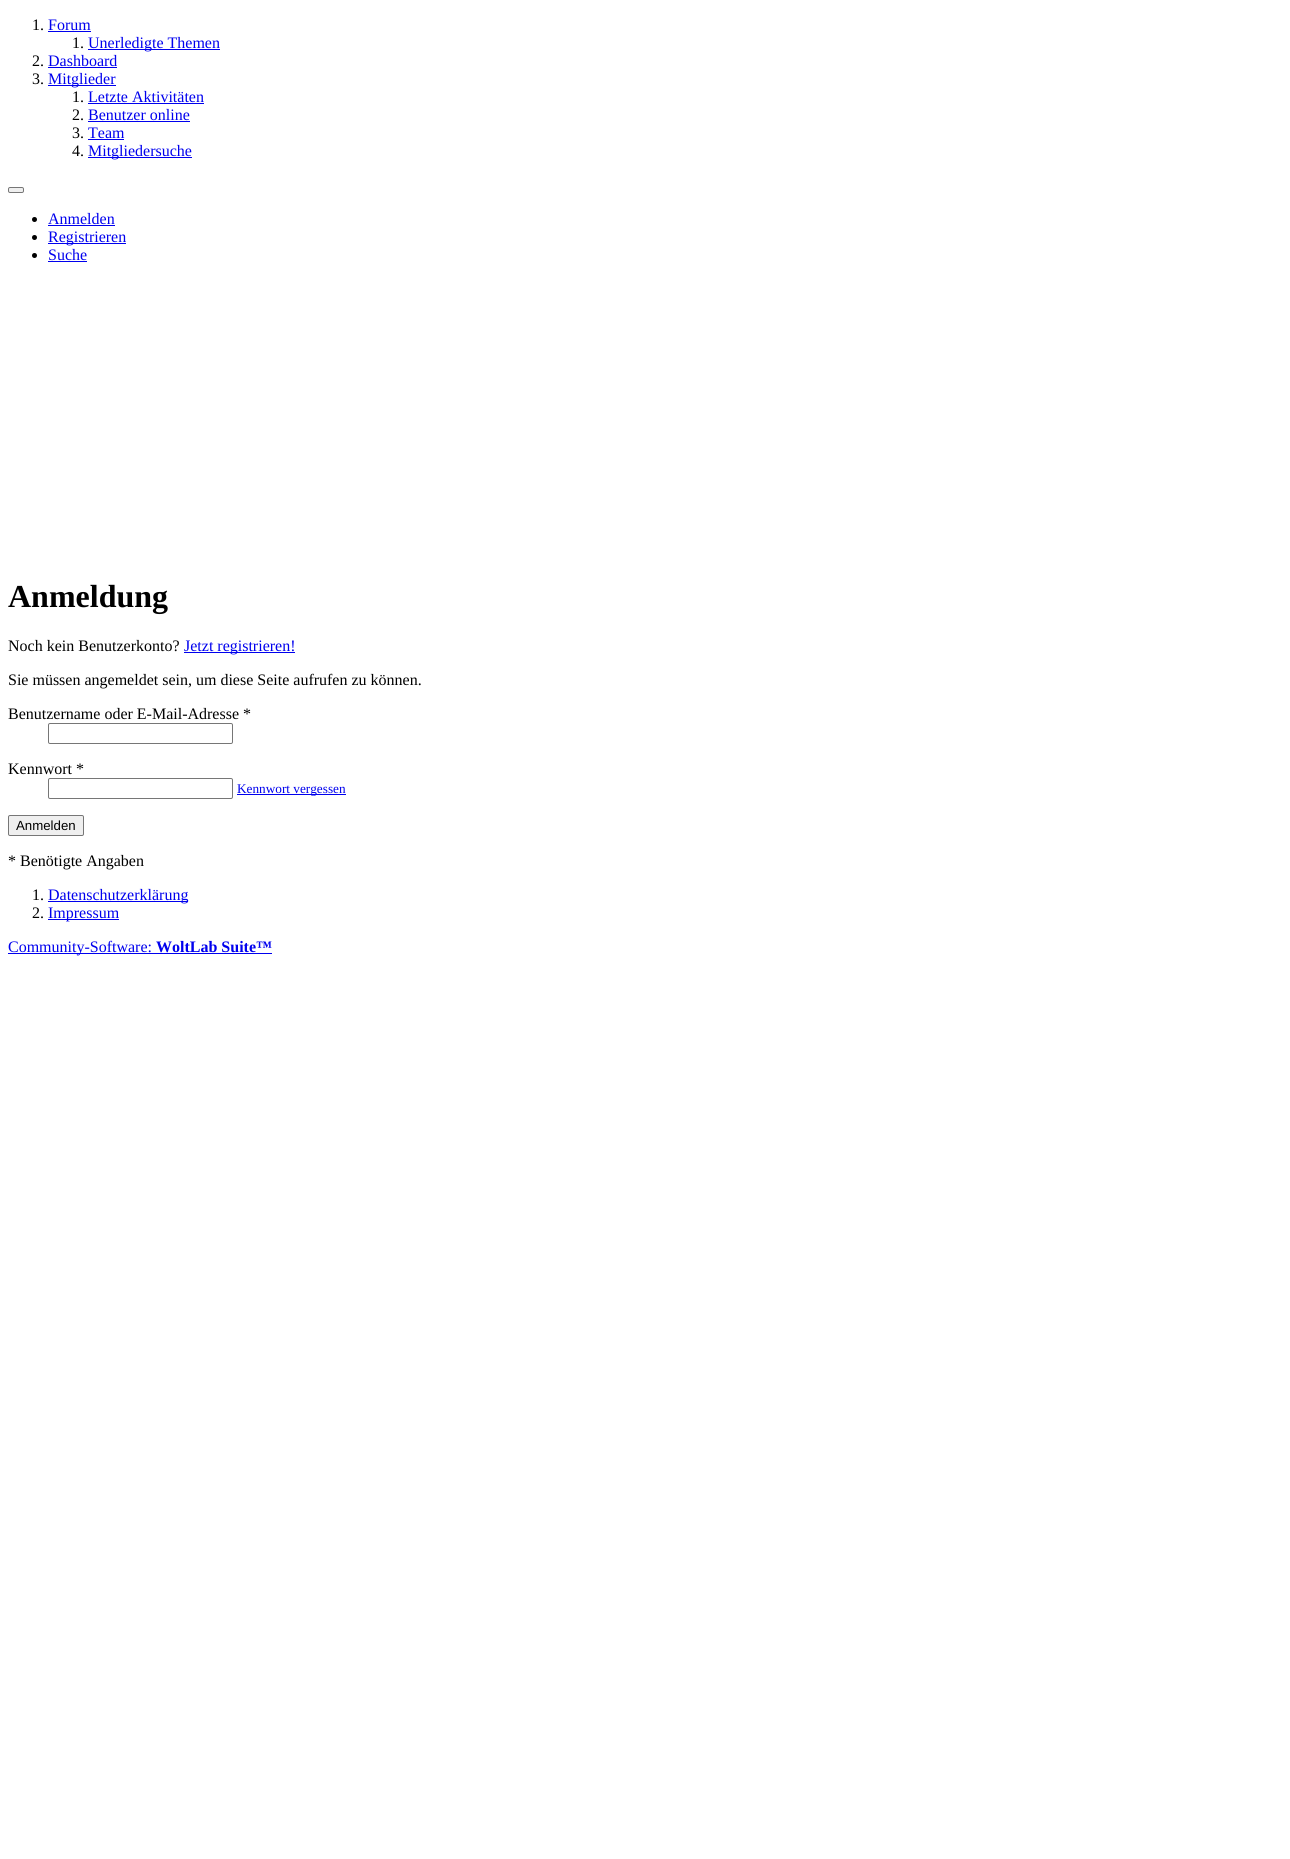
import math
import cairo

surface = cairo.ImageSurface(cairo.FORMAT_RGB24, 1290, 1859)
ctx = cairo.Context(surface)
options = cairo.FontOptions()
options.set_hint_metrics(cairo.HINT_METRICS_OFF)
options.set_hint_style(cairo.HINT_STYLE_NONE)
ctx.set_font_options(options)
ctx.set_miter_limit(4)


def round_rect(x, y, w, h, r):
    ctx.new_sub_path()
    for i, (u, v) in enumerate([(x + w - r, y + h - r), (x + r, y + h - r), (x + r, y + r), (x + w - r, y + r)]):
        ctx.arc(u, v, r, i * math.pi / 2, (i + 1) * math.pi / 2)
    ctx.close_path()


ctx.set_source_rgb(1, 1, 1)
ctx.paint()
ctx.select_font_face("Liberation Serif")
ctx.set_font_size(16)
ctx.set_source_rgb(0, 0, 0)
ctx.move_to(32, 30)
ctx.show_text("1.")
ctx.set_source_rgb(0, 0, 0.933)
ctx.move_to(48, 30)
ctx.show_text("Forum")
ctx.rectangle(48, 31, 43, 1)
ctx.fill()
ctx.set_source_rgb(0, 0, 0)
ctx.move_to(72, 48)
ctx.show_text("1.")
ctx.set_source_rgb(0, 0, 0.933)
ctx.rectangle(88, 49, 132, 1)
ctx.fill()
ctx.move_to(88, 48)
ctx.show_text("Unerledigte Themen")
ctx.set_source_rgb(0, 0, 0)
ctx.move_to(32, 66)
ctx.show_text("2.")
ctx.set_source_rgb(0, 0, 0.933)
ctx.move_to(48, 66)
ctx.show_text("Dashboard")
ctx.rectangle(48, 67, 69, 1)
ctx.fill()
ctx.set_source_rgb(0, 0, 0)
ctx.move_to(32, 84)
ctx.show_text("3.")
ctx.set_source_rgb(0, 0, 0.933)
ctx.rectangle(48, 85, 68, 1)
ctx.fill()
ctx.move_to(48, 84)
ctx.show_text("Mitglieder")
ctx.set_source_rgb(0, 0, 0)
ctx.move_to(72, 102)
ctx.show_text("1.")
ctx.set_source_rgb(0, 0, 0.933)
ctx.move_to(88, 102)
ctx.show_text("Letzte Aktivitäten")
ctx.rectangle(88, 103, 116, 1)
ctx.fill()
ctx.set_source_rgb(0, 0, 0)
ctx.move_to(72, 120)
ctx.show_text("2.")
ctx.set_source_rgb(0, 0, 0.933)
ctx.move_to(88, 120)
ctx.show_text("Benutzer online")
ctx.rectangle(88, 121, 102, 1)
ctx.fill()
ctx.set_source_rgb(0, 0, 0)
ctx.move_to(72, 138)
ctx.show_text("3.")
ctx.set_source_rgb(0, 0, 0.933)
ctx.move_to(88, 138)
ctx.show_text("Team")
ctx.rectangle(88, 139, 36, 1)
ctx.fill()
ctx.set_source_rgb(0, 0, 0)
ctx.move_to(72, 156)
ctx.show_text("4.")
ctx.set_source_rgb(0, 0, 0.933)
ctx.rectangle(88, 157, 104, 1)
ctx.fill()
ctx.move_to(88, 156)
ctx.show_text("Mitgliedersuche")
ctx.set_source_rgb(0.937, 0.937, 0.937)
round_rect(8.5, 187.5, 15, 5, 1.5)
ctx.fill_preserve()
ctx.set_source_rgb(0.463, 0.463, 0.463)
ctx.set_line_width(1)
ctx.stroke()
ctx.set_source_rgb(0, 0, 0)
ctx.arc(34.5, 219.5, 2.5, 0, 2 * math.pi)
ctx.fill()
ctx.set_source_rgb(0, 0, 0.933)
ctx.move_to(48, 224)
ctx.show_text("Anmelden")
ctx.rectangle(48, 225, 67, 1)
ctx.fill()
ctx.set_source_rgb(0, 0, 0)
ctx.arc(34.5, 237.5, 2.5, 0, 2 * math.pi)
ctx.fill()
ctx.set_source_rgb(0, 0, 0.933)
ctx.rectangle(48, 243, 78, 1)
ctx.fill()
ctx.move_to(48, 242)
ctx.show_text("Registrieren")
ctx.set_source_rgb(0, 0, 0)
ctx.new_path()
ctx.arc(34.5, 255.5, 2.5, 0, 2 * math.pi)
ctx.fill()
ctx.set_source_rgb(0, 0, 0.933)
ctx.move_to(48, 260)
ctx.show_text("Suche")
ctx.rectangle(48, 261, 39, 1)
ctx.fill()
ctx.select_font_face("Liberation Serif", cairo.FONT_SLANT_NORMAL, cairo.FONT_WEIGHT_BOLD)
ctx.set_font_size(32)
ctx.set_source_rgb(0, 0, 0)
ctx.move_to(8, 607)
ctx.show_text("Anmeldung")
ctx.select_font_face("Liberation Serif")
ctx.set_font_size(16)
ctx.move_to(8, 651)
ctx.show_text("Noch kein Benutzerkonto?")
ctx.set_source_rgb(0, 0, 0.933)
ctx.rectangle(184, 652, 111, 1)
ctx.fill()
ctx.move_to(184, 651)
ctx.show_text("Jetzt registrieren!")
ctx.set_source_rgb(0, 0, 0)
ctx.move_to(8, 685)
ctx.show_text("Sie müssen angemeldet sein, um diese Seite aufrufen zu können.")
ctx.move_to(8, 719)
ctx.show_text("Benutzername oder E-Mail-Adresse *")
round_rect(48.5, 723.5, 184, 20, 1.5)
ctx.set_source_rgb(0.463, 0.463, 0.463)
ctx.stroke()
ctx.set_source_rgb(0, 0, 0)
ctx.move_to(8, 774)
ctx.show_text("Kennwort *")
round_rect(48.5, 778.5, 184, 20, 1.5)
ctx.set_source_rgb(0.463, 0.463, 0.463)
ctx.stroke()
ctx.set_source_rgb(0, 0, 0.933)
ctx.rectangle(237, 794, 109, 1)
ctx.fill()
ctx.set_font_size(13.25)
ctx.move_to(237, 793)
ctx.show_text("Kennwort vergessen")
ctx.set_source_rgb(0.937, 0.937, 0.937)
round_rect(8.5, 815.5, 75, 20, 1.5)
ctx.fill_preserve()
ctx.set_source_rgb(0.463, 0.463, 0.463)
ctx.stroke()
ctx.select_font_face("Liberation Sans")
ctx.set_source_rgb(0, 0, 0)
ctx.move_to(16, 830)
ctx.show_text("Anmelden")
ctx.select_font_face("Liberation Serif")
ctx.set_font_size(16)
ctx.move_to(8, 866)
ctx.show_text("* Benötigte Angaben")
ctx.move_to(32, 900)
ctx.show_text("1.")
ctx.set_source_rgb(0, 0, 0.933)
ctx.rectangle(48, 901, 140, 1)
ctx.fill()
ctx.move_to(48, 900)
ctx.show_text("Datenschutzerklärung")
ctx.set_source_rgb(0, 0, 0)
ctx.move_to(32, 918)
ctx.show_text("2.")
ctx.set_source_rgb(0, 0, 0.933)
ctx.rectangle(48, 919, 71, 1)
ctx.fill()
ctx.move_to(48, 918)
ctx.show_text("Impressum")
ctx.rectangle(8, 953, 264, 1)
ctx.fill()
ctx.move_to(8, 952)
ctx.show_text("Community-Software:")
ctx.select_font_face("Liberation Serif", cairo.FONT_SLANT_NORMAL, cairo.FONT_WEIGHT_BOLD)
ctx.move_to(156, 952)
ctx.show_text("WoltLab Suite™")
surface.write_to_png("page.png")
